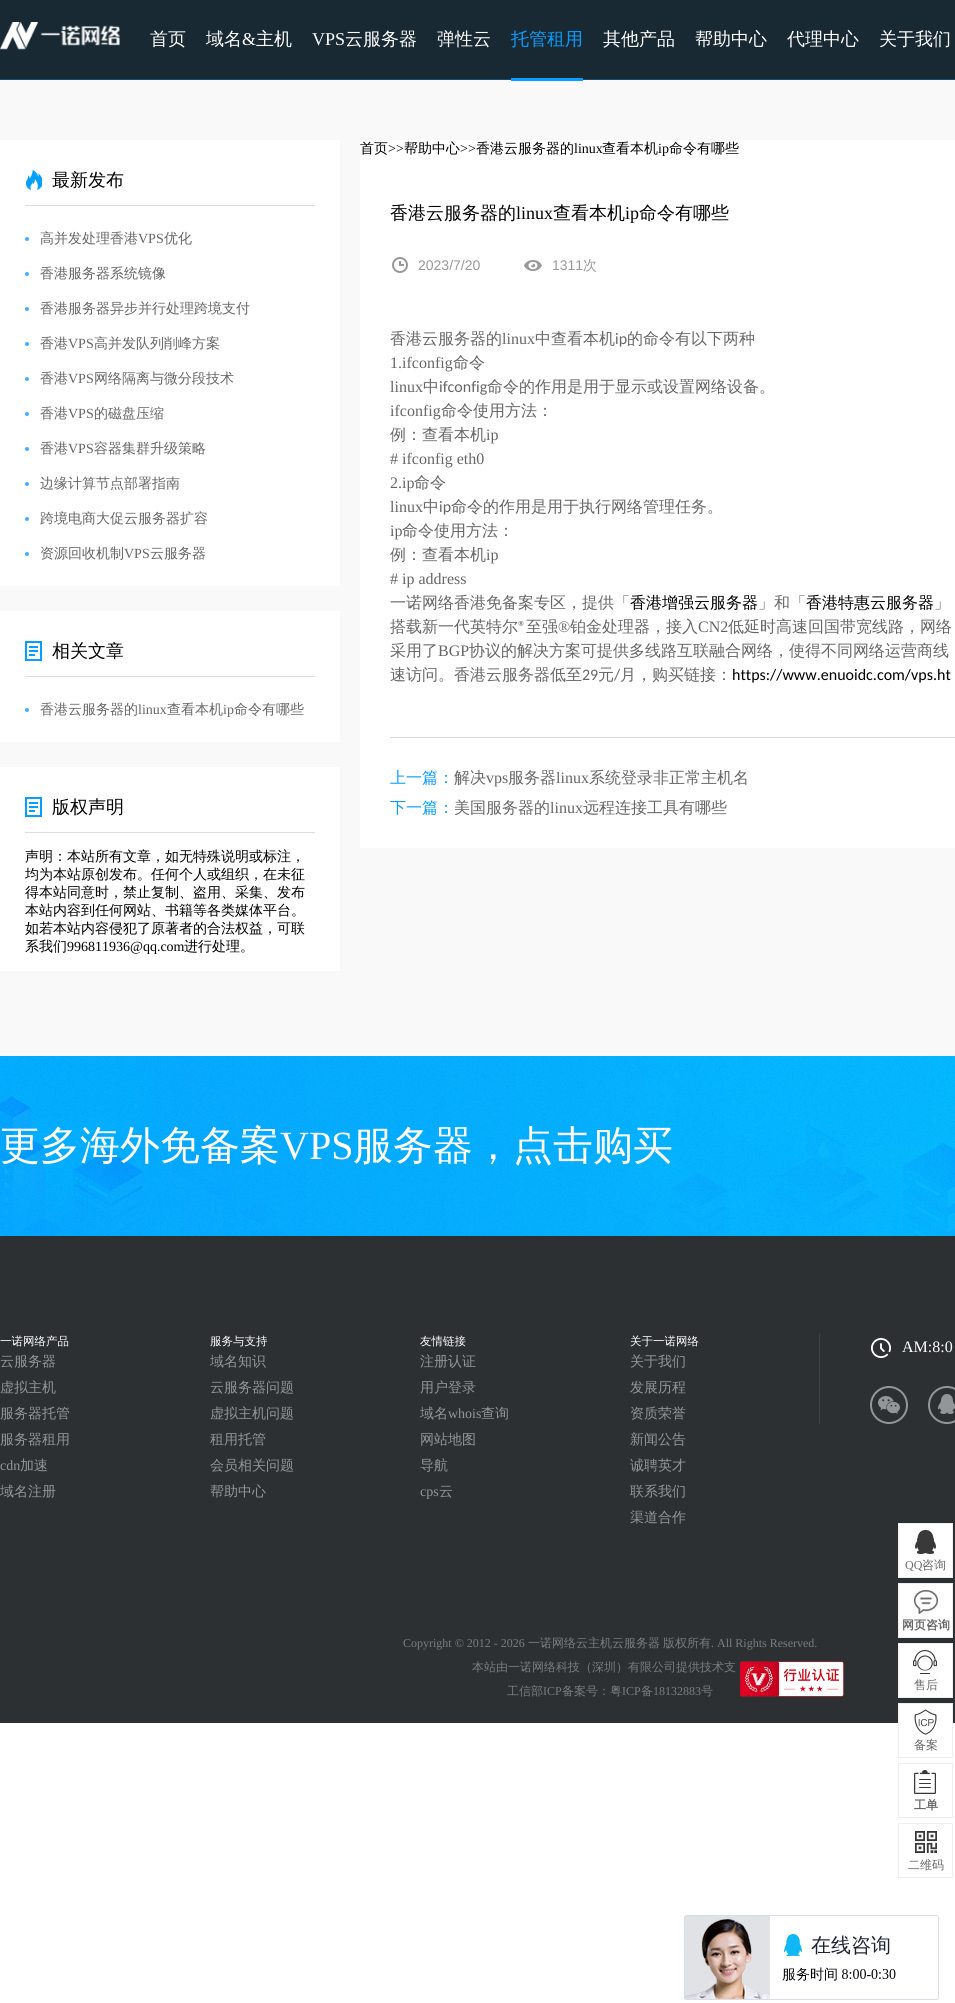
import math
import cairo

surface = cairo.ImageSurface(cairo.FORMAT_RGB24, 955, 2003)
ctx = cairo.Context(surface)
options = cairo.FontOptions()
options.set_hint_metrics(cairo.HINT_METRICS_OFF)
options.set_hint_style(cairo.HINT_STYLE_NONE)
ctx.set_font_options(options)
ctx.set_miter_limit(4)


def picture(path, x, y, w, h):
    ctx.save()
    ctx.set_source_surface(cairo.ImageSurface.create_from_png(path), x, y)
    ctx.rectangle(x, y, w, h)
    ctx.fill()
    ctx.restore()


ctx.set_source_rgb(1, 1, 1)
ctx.paint()
ctx.set_source_rgb(0.098, 0.161, 0.2)
ctx.rectangle(0, 0, 955, 79)
ctx.fill()
ctx.set_source_rgb(0.075, 0.298, 0.439)
ctx.rectangle(0, 79, 955, 1)
ctx.fill()
picture("img1.png", 0, 22, 120, 28)
ctx.select_font_face("WenQuanYi Zen Hei Medium")
ctx.set_font_size(18)
ctx.set_source_rgb(1, 1, 1)
ctx.move_to(150, 45)
ctx.show_text("首页")
ctx.move_to(206, 45)
ctx.show_text("域名")
ctx.select_font_face("Liberation Serif")
ctx.move_to(242, 45)
ctx.show_text("&")
ctx.select_font_face("WenQuanYi Zen Hei Medium")
ctx.move_to(256, 45)
ctx.show_text("主机")
ctx.select_font_face("Liberation Serif")
ctx.move_to(312, 45)
ctx.show_text("VPS")
ctx.select_font_face("WenQuanYi Zen Hei Medium")
ctx.move_to(345, 45)
ctx.show_text("云服务器")
ctx.move_to(437, 45)
ctx.show_text("弹性云")
ctx.set_source_rgb(0.02, 0.624, 1)
ctx.move_to(511, 45)
ctx.show_text("托管租用")
ctx.set_source_rgb(0.973, 0.973, 0.973)
ctx.rectangle(0, 80, 955, 976)
ctx.fill()
ctx.set_source_rgb(0.02, 0.624, 1)
ctx.rectangle(511, 78, 72, 3)
ctx.fill()
ctx.set_source_rgb(1, 1, 1)
ctx.move_to(603, 45)
ctx.show_text("其他产品")
ctx.move_to(695, 45)
ctx.show_text("帮助中心")
ctx.move_to(787, 45)
ctx.show_text("代理中心")
ctx.move_to(879, 45)
ctx.show_text("关于我们")
ctx.rectangle(0, 140, 340, 446)
ctx.fill()
ctx.set_source_rgb(0.867, 0.867, 0.867)
ctx.rectangle(25, 205, 290, 1)
ctx.fill()
picture("img2.png", 26, 170, 16, 20)
ctx.set_source_rgb(0, 0, 0)
ctx.move_to(52, 186)
ctx.show_text("最新发布")
ctx.set_source_rgb(0.271, 0.682, 1)
ctx.new_path()
ctx.arc(27, 239, 2, 0, 2 * math.pi)
ctx.fill()
ctx.set_font_size(14)
ctx.set_source_rgb(0.4, 0.4, 0.4)
ctx.move_to(40, 243)
ctx.show_text("高并发处理香港")
ctx.select_font_face("Liberation Serif")
ctx.move_to(138, 243)
ctx.show_text("VPS")
ctx.select_font_face("WenQuanYi Zen Hei Medium")
ctx.move_to(164, 243)
ctx.show_text("优化")
ctx.set_source_rgb(0.271, 0.682, 1)
ctx.new_path()
ctx.arc(27, 274, 2, 0, 2 * math.pi)
ctx.fill()
ctx.set_source_rgb(0.4, 0.4, 0.4)
ctx.move_to(40, 278)
ctx.show_text("香港服务器系统镜像")
ctx.set_source_rgb(0.271, 0.682, 1)
ctx.new_path()
ctx.arc(27, 309, 2, 0, 2 * math.pi)
ctx.fill()
ctx.set_source_rgb(0.4, 0.4, 0.4)
ctx.move_to(40, 313)
ctx.show_text("香港服务器异步并行处理跨境支付")
ctx.set_source_rgb(0.271, 0.682, 1)
ctx.new_path()
ctx.arc(27, 344, 2, 0, 2 * math.pi)
ctx.fill()
ctx.set_source_rgb(0.4, 0.4, 0.4)
ctx.move_to(40, 348)
ctx.show_text("香港")
ctx.select_font_face("Liberation Serif")
ctx.move_to(68, 348)
ctx.show_text("VPS")
ctx.select_font_face("WenQuanYi Zen Hei Medium")
ctx.move_to(94, 348)
ctx.show_text("高并发队列削峰方案")
ctx.set_source_rgb(0.271, 0.682, 1)
ctx.new_path()
ctx.arc(27, 379, 2, 0, 2 * math.pi)
ctx.fill()
ctx.set_source_rgb(0.4, 0.4, 0.4)
ctx.move_to(40, 383)
ctx.show_text("香港")
ctx.select_font_face("Liberation Serif")
ctx.move_to(68, 383)
ctx.show_text("VPS")
ctx.select_font_face("WenQuanYi Zen Hei Medium")
ctx.move_to(94, 383)
ctx.show_text("网络隔离与微分段技术")
ctx.set_source_rgb(0.271, 0.682, 1)
ctx.new_path()
ctx.arc(27, 414, 2, 0, 2 * math.pi)
ctx.fill()
ctx.set_source_rgb(0.4, 0.4, 0.4)
ctx.move_to(40, 418)
ctx.show_text("香港")
ctx.select_font_face("Liberation Serif")
ctx.move_to(68, 418)
ctx.show_text("VPS")
ctx.select_font_face("WenQuanYi Zen Hei Medium")
ctx.move_to(94, 418)
ctx.show_text("的磁盘压缩")
ctx.set_source_rgb(0.271, 0.682, 1)
ctx.new_path()
ctx.arc(27, 449, 2, 0, 2 * math.pi)
ctx.fill()
ctx.set_source_rgb(0.4, 0.4, 0.4)
ctx.move_to(40, 453)
ctx.show_text("香港")
ctx.select_font_face("Liberation Serif")
ctx.move_to(68, 453)
ctx.show_text("VPS")
ctx.select_font_face("WenQuanYi Zen Hei Medium")
ctx.move_to(94, 453)
ctx.show_text("容器集群升级策略")
ctx.set_source_rgb(0.271, 0.682, 1)
ctx.new_path()
ctx.arc(27, 484, 2, 0, 2 * math.pi)
ctx.fill()
ctx.set_source_rgb(0.4, 0.4, 0.4)
ctx.move_to(40, 488)
ctx.show_text("边缘计算节点部署指南")
ctx.set_source_rgb(0.271, 0.682, 1)
ctx.new_path()
ctx.arc(27, 519, 2, 0, 2 * math.pi)
ctx.fill()
ctx.set_source_rgb(0.4, 0.4, 0.4)
ctx.move_to(40, 523)
ctx.show_text("跨境电商大促云服务器扩容")
ctx.set_source_rgb(0.271, 0.682, 1)
ctx.new_path()
ctx.arc(27, 554, 2, 0, 2 * math.pi)
ctx.fill()
ctx.set_source_rgb(0.4, 0.4, 0.4)
ctx.move_to(40, 558)
ctx.show_text("资源回收机制")
ctx.select_font_face("Liberation Serif")
ctx.move_to(124, 558)
ctx.show_text("VPS")
ctx.select_font_face("WenQuanYi Zen Hei Medium")
ctx.move_to(150, 558)
ctx.show_text("云服务器")
ctx.set_source_rgb(1, 1, 1)
ctx.rectangle(0, 611, 340, 131)
ctx.fill()
ctx.set_source_rgb(0.867, 0.867, 0.867)
ctx.rectangle(25, 676, 290, 1)
ctx.fill()
picture("img3.png", 25, 641, 17, 20)
ctx.set_font_size(18)
ctx.set_source_rgb(0, 0, 0)
ctx.move_to(52, 657)
ctx.show_text("相关文章")
ctx.set_source_rgb(0.271, 0.682, 1)
ctx.new_path()
ctx.arc(27, 710, 2, 0, 2 * math.pi)
ctx.fill()
ctx.set_font_size(14)
ctx.set_source_rgb(0.4, 0.4, 0.4)
ctx.move_to(40, 714)
ctx.show_text("香港云服务器的")
ctx.select_font_face("Liberation Serif")
ctx.move_to(138, 714)
ctx.show_text("linux")
ctx.select_font_face("WenQuanYi Zen Hei Medium")
ctx.move_to(167, 714)
ctx.show_text("查看本机")
ctx.select_font_face("Liberation Serif")
ctx.move_to(223, 714)
ctx.show_text("ip")
ctx.select_font_face("WenQuanYi Zen Hei Medium")
ctx.move_to(234, 714)
ctx.show_text("命令有哪些")
ctx.set_source_rgb(1, 1, 1)
ctx.rectangle(0, 767, 340, 204)
ctx.fill()
ctx.set_source_rgb(0.867, 0.867, 0.867)
ctx.rectangle(25, 832, 290, 1)
ctx.fill()
picture("img3.png", 25, 797, 17, 20)
ctx.set_font_size(18)
ctx.set_source_rgb(0, 0, 0)
ctx.move_to(52, 813)
ctx.show_text("版权声明")
ctx.set_font_size(14)
ctx.move_to(25, 861)
ctx.show_text("声明：本站所有文章，如无特殊说明或标注，")
ctx.move_to(25, 879)
ctx.show_text("均为本站原创发布。任何个人或组织，在未征")
ctx.move_to(25, 897)
ctx.show_text("得本站同意时，禁止复制、盗用、采集、发布")
ctx.move_to(25, 915)
ctx.show_text("本站内容到任何网站、书籍等各类媒体平台。")
ctx.move_to(25, 933)
ctx.show_text("如若本站内容侵犯了原著者的合法权益，可联")
ctx.move_to(25, 951)
ctx.show_text("系我们")
ctx.select_font_face("Liberation Serif")
ctx.move_to(67, 951)
ctx.show_text("996811936@qq.com")
ctx.select_font_face("WenQuanYi Zen Hei Medium")
ctx.move_to(184, 951)
ctx.show_text("进行处理。")
ctx.set_source_rgb(1, 1, 1)
ctx.rectangle(360, 140, 595, 708)
ctx.fill()
ctx.set_source_rgb(0, 0, 0)
ctx.move_to(360, 153)
ctx.show_text("首页")
ctx.select_font_face("Liberation Serif")
ctx.move_to(388, 153)
ctx.show_text(">>")
ctx.select_font_face("WenQuanYi Zen Hei Medium")
ctx.move_to(404, 153)
ctx.show_text("帮助中心")
ctx.select_font_face("Liberation Serif")
ctx.move_to(460, 153)
ctx.show_text(">>")
ctx.select_font_face("WenQuanYi Zen Hei Medium")
ctx.move_to(476, 153)
ctx.show_text("香港云服务器的")
ctx.select_font_face("Liberation Serif")
ctx.move_to(574, 153)
ctx.show_text("linux")
ctx.select_font_face("WenQuanYi Zen Hei Medium")
ctx.move_to(602, 153)
ctx.show_text("查看本机")
ctx.select_font_face("Liberation Serif")
ctx.move_to(658, 153)
ctx.show_text("ip")
ctx.select_font_face("WenQuanYi Zen Hei Medium")
ctx.move_to(669, 153)
ctx.show_text("命令有哪些")
ctx.set_font_size(18)
ctx.move_to(390, 219)
ctx.show_text("香港云服务器的")
ctx.select_font_face("Liberation Serif")
ctx.move_to(516, 219)
ctx.show_text("linux")
ctx.select_font_face("WenQuanYi Zen Hei Medium")
ctx.move_to(553, 219)
ctx.show_text("查看本机")
ctx.select_font_face("Liberation Serif")
ctx.move_to(625, 219)
ctx.show_text("ip")
ctx.select_font_face("WenQuanYi Zen Hei Medium")
ctx.move_to(639, 219)
ctx.show_text("命令有哪些")
picture("img4.png", 392, 257, 16, 16)
ctx.select_font_face("Liberation Sans")
ctx.set_font_size(14)
ctx.set_source_rgb(0.6, 0.6, 0.6)
ctx.move_to(418, 270)
ctx.show_text("2023/7/20")
picture("img5.png", 524, 260, 18, 11)
ctx.move_to(552, 270)
ctx.show_text("1311")
ctx.select_font_face("WenQuanYi Zen Hei Medium")
ctx.move_to(583, 270)
ctx.show_text("次")
ctx.set_font_size(16)
ctx.set_source_rgb(0.4, 0.4, 0.4)
ctx.move_to(390, 344)
ctx.show_text("香港云服务器的")
ctx.select_font_face("Liberation Serif")
ctx.move_to(502, 344)
ctx.show_text("linux")
ctx.select_font_face("WenQuanYi Zen Hei Medium")
ctx.move_to(535, 344)
ctx.show_text("中查看本机")
ctx.select_font_face("Carlito")
ctx.move_to(615, 344)
ctx.show_text("ip")
ctx.select_font_face("WenQuanYi Zen Hei Medium")
ctx.move_to(627, 344)
ctx.show_text("的命令有以下两种")
ctx.select_font_face("Liberation Serif")
ctx.move_to(390, 368)
ctx.show_text("1.ifconfig")
ctx.select_font_face("WenQuanYi Zen Hei Medium")
ctx.move_to(453, 368)
ctx.show_text("命令")
ctx.select_font_face("Liberation Serif")
ctx.move_to(390, 392)
ctx.show_text("linux")
ctx.select_font_face("WenQuanYi Zen Hei Medium")
ctx.move_to(423, 392)
ctx.show_text("中")
ctx.select_font_face("Carlito")
ctx.move_to(439, 392)
ctx.show_text("ifconfig")
ctx.select_font_face("WenQuanYi Zen Hei Medium")
ctx.move_to(487, 392)
ctx.show_text("命令的作用是用于显示或设置网络设备。")
ctx.select_font_face("Liberation Serif")
ctx.move_to(390, 416)
ctx.show_text("ifconfig")
ctx.select_font_face("WenQuanYi Zen Hei Medium")
ctx.move_to(441, 416)
ctx.show_text("命令使用方法：")
ctx.move_to(390, 440)
ctx.show_text("例：查看本机")
ctx.select_font_face("Liberation Serif")
ctx.move_to(486, 440)
ctx.show_text("ip")
ctx.move_to(390, 464)
ctx.show_text("# ifconfig eth0")
ctx.move_to(390, 488)
ctx.show_text("2.ip")
ctx.select_font_face("WenQuanYi Zen Hei Medium")
ctx.move_to(414, 488)
ctx.show_text("命令")
ctx.select_font_face("Liberation Serif")
ctx.move_to(390, 512)
ctx.show_text("linux")
ctx.select_font_face("WenQuanYi Zen Hei Medium")
ctx.move_to(423, 512)
ctx.show_text("中")
ctx.select_font_face("Carlito")
ctx.move_to(439, 512)
ctx.show_text("ip")
ctx.select_font_face("WenQuanYi Zen Hei Medium")
ctx.move_to(451, 512)
ctx.show_text("命令的作用是用于执行网络管理任务。")
ctx.select_font_face("Liberation Serif")
ctx.move_to(390, 536)
ctx.show_text("ip")
ctx.select_font_face("WenQuanYi Zen Hei Medium")
ctx.move_to(402, 536)
ctx.show_text("命令使用方法：")
ctx.move_to(390, 560)
ctx.show_text("例：查看本机")
ctx.select_font_face("Liberation Serif")
ctx.move_to(486, 560)
ctx.show_text("ip")
ctx.move_to(390, 584)
ctx.show_text("# ip address")
ctx.select_font_face("WenQuanYi Zen Hei Medium")
ctx.move_to(390, 608)
ctx.show_text("一诺网络香港免备案专区，提供「")
ctx.set_source_rgb(0, 0, 0)
ctx.move_to(630, 608)
ctx.show_text("香港增强云服务器")
ctx.set_source_rgb(0.4, 0.4, 0.4)
ctx.move_to(758, 608)
ctx.show_text("」和「")
ctx.set_source_rgb(0, 0, 0)
ctx.move_to(806, 608)
ctx.show_text("香港特惠云服务器")
ctx.set_source_rgb(0.4, 0.4, 0.4)
ctx.move_to(934, 608)
ctx.show_text("」")
ctx.move_to(390, 632)
ctx.show_text("搭载新一代英特尔")
ctx.select_font_face("Carlito")
ctx.move_to(518, 632)
ctx.show_text("®")
ctx.select_font_face("WenQuanYi Zen Hei Medium")
ctx.move_to(526, 632)
ctx.show_text("至强")
ctx.select_font_face("Liberation Serif")
ctx.move_to(558, 632)
ctx.show_text("®")
ctx.select_font_face("WenQuanYi Zen Hei Medium")
ctx.move_to(570, 632)
ctx.show_text("铂金处理器，接入")
ctx.select_font_face("Liberation Serif")
ctx.move_to(698, 632)
ctx.show_text("CN2")
ctx.select_font_face("WenQuanYi Zen Hei Medium")
ctx.move_to(728, 632)
ctx.show_text("低延时高速回国带宽线路，网络")
ctx.move_to(390, 656)
ctx.show_text("采用了")
ctx.select_font_face("Liberation Serif")
ctx.move_to(438, 656)
ctx.show_text("BGP")
ctx.select_font_face("WenQuanYi Zen Hei Medium")
ctx.move_to(469, 656)
ctx.show_text("协议的解决方案可提供多线路互联融合网络，使得不同网络运营商线")
ctx.move_to(390, 680)
ctx.show_text("速访问。香港云服务器低至")
ctx.select_font_face("Carlito")
ctx.move_to(582, 680)
ctx.show_text("29")
ctx.select_font_face("WenQuanYi Zen Hei Medium")
ctx.move_to(598, 680)
ctx.show_text("元")
ctx.select_font_face("Carlito")
ctx.move_to(614, 680)
ctx.show_text("/")
ctx.select_font_face("WenQuanYi Zen Hei Medium")
ctx.move_to(620, 680)
ctx.show_text("月，购买链接：")
ctx.select_font_face("Carlito")
ctx.set_source_rgb(0, 0, 0)
ctx.move_to(732, 680)
ctx.show_text("https://www.enuoidc.com/vps.ht")
ctx.set_source_rgb(0.867, 0.867, 0.867)
ctx.rectangle(390, 737, 565, 1)
ctx.fill()
ctx.select_font_face("WenQuanYi Zen Hei Medium")
ctx.set_source_rgb(0.02, 0.624, 1)
ctx.move_to(390, 783)
ctx.show_text("上一篇：")
ctx.set_source_rgb(0.4, 0.4, 0.4)
ctx.move_to(454, 783)
ctx.show_text("解决")
ctx.select_font_face("Liberation Serif")
ctx.move_to(486, 783)
ctx.show_text("vps")
ctx.select_font_face("WenQuanYi Zen Hei Medium")
ctx.move_to(508, 783)
ctx.show_text("服务器")
ctx.select_font_face("Liberation Serif")
ctx.move_to(556, 783)
ctx.show_text("linux")
ctx.select_font_face("WenQuanYi Zen Hei Medium")
ctx.move_to(589, 783)
ctx.show_text("系统登录非正常主机名")
ctx.set_source_rgb(0.02, 0.624, 1)
ctx.move_to(390, 813)
ctx.show_text("下一篇：")
ctx.set_source_rgb(0.4, 0.4, 0.4)
ctx.move_to(454, 813)
ctx.show_text("美国服务器的")
ctx.select_font_face("Liberation Serif")
ctx.move_to(550, 813)
ctx.show_text("linux")
ctx.select_font_face("WenQuanYi Zen Hei Medium")
ctx.move_to(583, 813)
ctx.show_text("远程连接工具有哪些")
picture("img6.png", 0, 1056, 955, 180)
ctx.set_font_size(40)
ctx.set_source_rgb(1, 1, 1)
ctx.move_to(0, 1159)
ctx.show_text("更多海外免备案")
ctx.select_font_face("Liberation Serif")
ctx.move_to(280, 1159)
ctx.show_text("VPS")
ctx.select_font_face("WenQuanYi Zen Hei Medium")
ctx.move_to(353, 1159)
ctx.show_text("服务器，点击购买")
ctx.set_source_rgb(0.173, 0.188, 0.2)
ctx.rectangle(0, 1236, 955, 487)
ctx.fill()
ctx.set_font_size(11.5)
ctx.set_source_rgb(1, 1, 1)
ctx.move_to(0, 1345)
ctx.show_text("一诺网络产品")
ctx.set_font_size(14)
ctx.set_source_rgb(0.576, 0.588, 0.6)
ctx.move_to(0, 1366)
ctx.show_text("云服务器")
ctx.move_to(0, 1392)
ctx.show_text("虚拟主机")
ctx.move_to(0, 1418)
ctx.show_text("服务器托管")
ctx.move_to(0, 1444)
ctx.show_text("服务器租用")
ctx.select_font_face("Liberation Serif")
ctx.move_to(0, 1470)
ctx.show_text("cdn")
ctx.select_font_face("WenQuanYi Zen Hei Medium")
ctx.move_to(20, 1470)
ctx.show_text("加速")
ctx.move_to(0, 1496)
ctx.show_text("域名注册")
ctx.set_font_size(11.5)
ctx.set_source_rgb(1, 1, 1)
ctx.move_to(210, 1345)
ctx.show_text("服务与支持")
ctx.set_font_size(14)
ctx.set_source_rgb(0.576, 0.588, 0.6)
ctx.move_to(210, 1366)
ctx.show_text("域名知识")
ctx.move_to(210, 1392)
ctx.show_text("云服务器问题")
ctx.move_to(210, 1418)
ctx.show_text("虚拟主机问题")
ctx.move_to(210, 1444)
ctx.show_text("租用托管")
ctx.move_to(210, 1470)
ctx.show_text("会员相关问题")
ctx.move_to(210, 1496)
ctx.show_text("帮助中心")
ctx.set_font_size(11.5)
ctx.set_source_rgb(1, 1, 1)
ctx.move_to(420, 1345)
ctx.show_text("友情链接")
ctx.set_font_size(14)
ctx.set_source_rgb(0.576, 0.588, 0.6)
ctx.move_to(420, 1366)
ctx.show_text("注册认证")
ctx.move_to(420, 1392)
ctx.show_text("用户登录")
ctx.move_to(420, 1418)
ctx.show_text("域名")
ctx.select_font_face("Liberation Serif")
ctx.move_to(448, 1418)
ctx.show_text("whois")
ctx.select_font_face("WenQuanYi Zen Hei Medium")
ctx.move_to(481, 1418)
ctx.show_text("查询")
ctx.move_to(420, 1444)
ctx.show_text("网站地图")
ctx.move_to(420, 1470)
ctx.show_text("导航")
ctx.select_font_face("Liberation Serif")
ctx.move_to(420, 1496)
ctx.show_text("cps")
ctx.select_font_face("WenQuanYi Zen Hei Medium")
ctx.move_to(439, 1496)
ctx.show_text("云")
ctx.set_font_size(11.5)
ctx.set_source_rgb(1, 1, 1)
ctx.move_to(630, 1345)
ctx.show_text("关于一诺网络")
ctx.set_font_size(14)
ctx.set_source_rgb(0.576, 0.588, 0.6)
ctx.move_to(630, 1366)
ctx.show_text("关于我们")
ctx.move_to(630, 1392)
ctx.show_text("发展历程")
ctx.move_to(630, 1418)
ctx.show_text("资质荣誉")
ctx.move_to(630, 1444)
ctx.show_text("新闻公告")
ctx.move_to(630, 1470)
ctx.show_text("诚聘英才")
ctx.move_to(630, 1496)
ctx.show_text("联系我们")
ctx.move_to(630, 1522)
ctx.show_text("渠道合作")
ctx.set_source_rgb(0.255, 0.267, 0.278)
ctx.rectangle(819, 1334, 1, 90)
ctx.fill()
picture("img7.png", 871, 1338, 20, 20)
ctx.select_font_face("Liberation Serif")
ctx.set_font_size(16)
ctx.set_source_rgb(1, 1, 1)
ctx.move_to(902, 1352)
ctx.show_text("AM:8:0")
picture("img8.png", 870, 1386, 38, 38)
picture("img9.png", 928, 1386, 27, 38)
ctx.set_font_size(12)
ctx.set_source_rgb(0.478, 0.49, 0.502)
ctx.move_to(403, 1647)
ctx.show_text("Copyright © 2012 - 2026")
ctx.select_font_face("WenQuanYi Zen Hei Medium")
ctx.move_to(528, 1647)
ctx.show_text("一诺网络云主机云服务器")
ctx.move_to(663, 1647)
ctx.show_text("版权所有")
ctx.select_font_face("Liberation Serif")
ctx.move_to(711, 1647)
ctx.show_text(". All Rights Reserved.")
ctx.select_font_face("WenQuanYi Zen Hei Medium")
ctx.move_to(472, 1671)
ctx.show_text("本站由一诺网络科技（深圳）有限公司提供技术支")
picture("img10.png", 740, 1661, 104, 36)
ctx.move_to(507, 1695)
ctx.show_text("工信部")
ctx.select_font_face("Liberation Serif")
ctx.move_to(543, 1695)
ctx.show_text("ICP")
ctx.select_font_face("WenQuanYi Zen Hei Medium")
ctx.move_to(562, 1695)
ctx.show_text("备案号：粤")
ctx.select_font_face("Liberation Serif")
ctx.move_to(622, 1695)
ctx.show_text("ICP")
ctx.select_font_face("WenQuanYi Zen Hei Medium")
ctx.move_to(641, 1695)
ctx.show_text("备")
ctx.select_font_face("Liberation Serif")
ctx.move_to(653, 1695)
ctx.show_text("18132883")
ctx.select_font_face("WenQuanYi Zen Hei Medium")
ctx.move_to(701, 1695)
ctx.show_text("号")
ctx.set_source_rgb(1, 1, 1)
ctx.rectangle(898.5, 1523.5, 54, 54)
ctx.fill_preserve()
ctx.set_source_rgb(0.933, 0.933, 0.933)
ctx.set_line_width(1)
ctx.stroke()
picture("img11.png", 915, 1530, 21, 24)
ctx.select_font_face("Liberation Serif")
ctx.set_source_rgb(0.4, 0.4, 0.4)
ctx.move_to(905, 1569)
ctx.show_text("QQ")
ctx.select_font_face("WenQuanYi Zen Hei Medium")
ctx.move_to(922, 1569)
ctx.show_text("咨询")
ctx.set_source_rgb(1, 1, 1)
ctx.rectangle(898.5, 1583.5, 54, 54)
ctx.fill_preserve()
ctx.set_source_rgb(0.933, 0.933, 0.933)
ctx.stroke()
picture("img12.png", 914, 1590, 24, 24)
ctx.select_font_face("WenQuanYi Zen Hei", cairo.FONT_SLANT_NORMAL, cairo.FONT_WEIGHT_BOLD)
ctx.set_source_rgb(0.4, 0.4, 0.4)
ctx.move_to(902, 1629)
ctx.show_text("网页咨询")
ctx.set_source_rgb(1, 1, 1)
ctx.rectangle(898.5, 1643.5, 54, 54)
ctx.fill_preserve()
ctx.set_source_rgb(0.933, 0.933, 0.933)
ctx.stroke()
picture("img13.png", 913, 1650, 24, 24)
ctx.select_font_face("WenQuanYi Zen Hei Medium")
ctx.set_source_rgb(0.4, 0.4, 0.4)
ctx.move_to(914, 1689)
ctx.show_text("售后")
ctx.set_source_rgb(1, 1, 1)
ctx.rectangle(899, 1704, 53, 19)
ctx.fill()
ctx.rectangle(898.5, 1703.5, 54, 54)
ctx.set_source_rgb(0.933, 0.933, 0.933)
ctx.stroke()
picture("img14.png", 914, 1709, 23, 26)
ctx.set_source_rgb(0.4, 0.4, 0.4)
ctx.move_to(914, 1749)
ctx.show_text("备案")
ctx.rectangle(898.5, 1763.5, 54, 54)
ctx.set_source_rgb(0.933, 0.933, 0.933)
ctx.stroke()
picture("img15.png", 914, 1770, 22, 24)
ctx.select_font_face("WenQuanYi Zen Hei", cairo.FONT_SLANT_NORMAL, cairo.FONT_WEIGHT_BOLD)
ctx.set_source_rgb(0.4, 0.4, 0.4)
ctx.move_to(914, 1809)
ctx.show_text("工单")
ctx.rectangle(898.5, 1823.5, 54, 54)
ctx.set_source_rgb(0.933, 0.933, 0.933)
ctx.stroke()
picture("img16.png", 915, 1831, 22, 22)
ctx.select_font_face("WenQuanYi Zen Hei Medium")
ctx.set_source_rgb(0.4, 0.4, 0.4)
ctx.move_to(908, 1869)
ctx.show_text("二维码")
picture("img17.png", 684, 1915, 255, 85)
surface.write_to_png("page.png")
